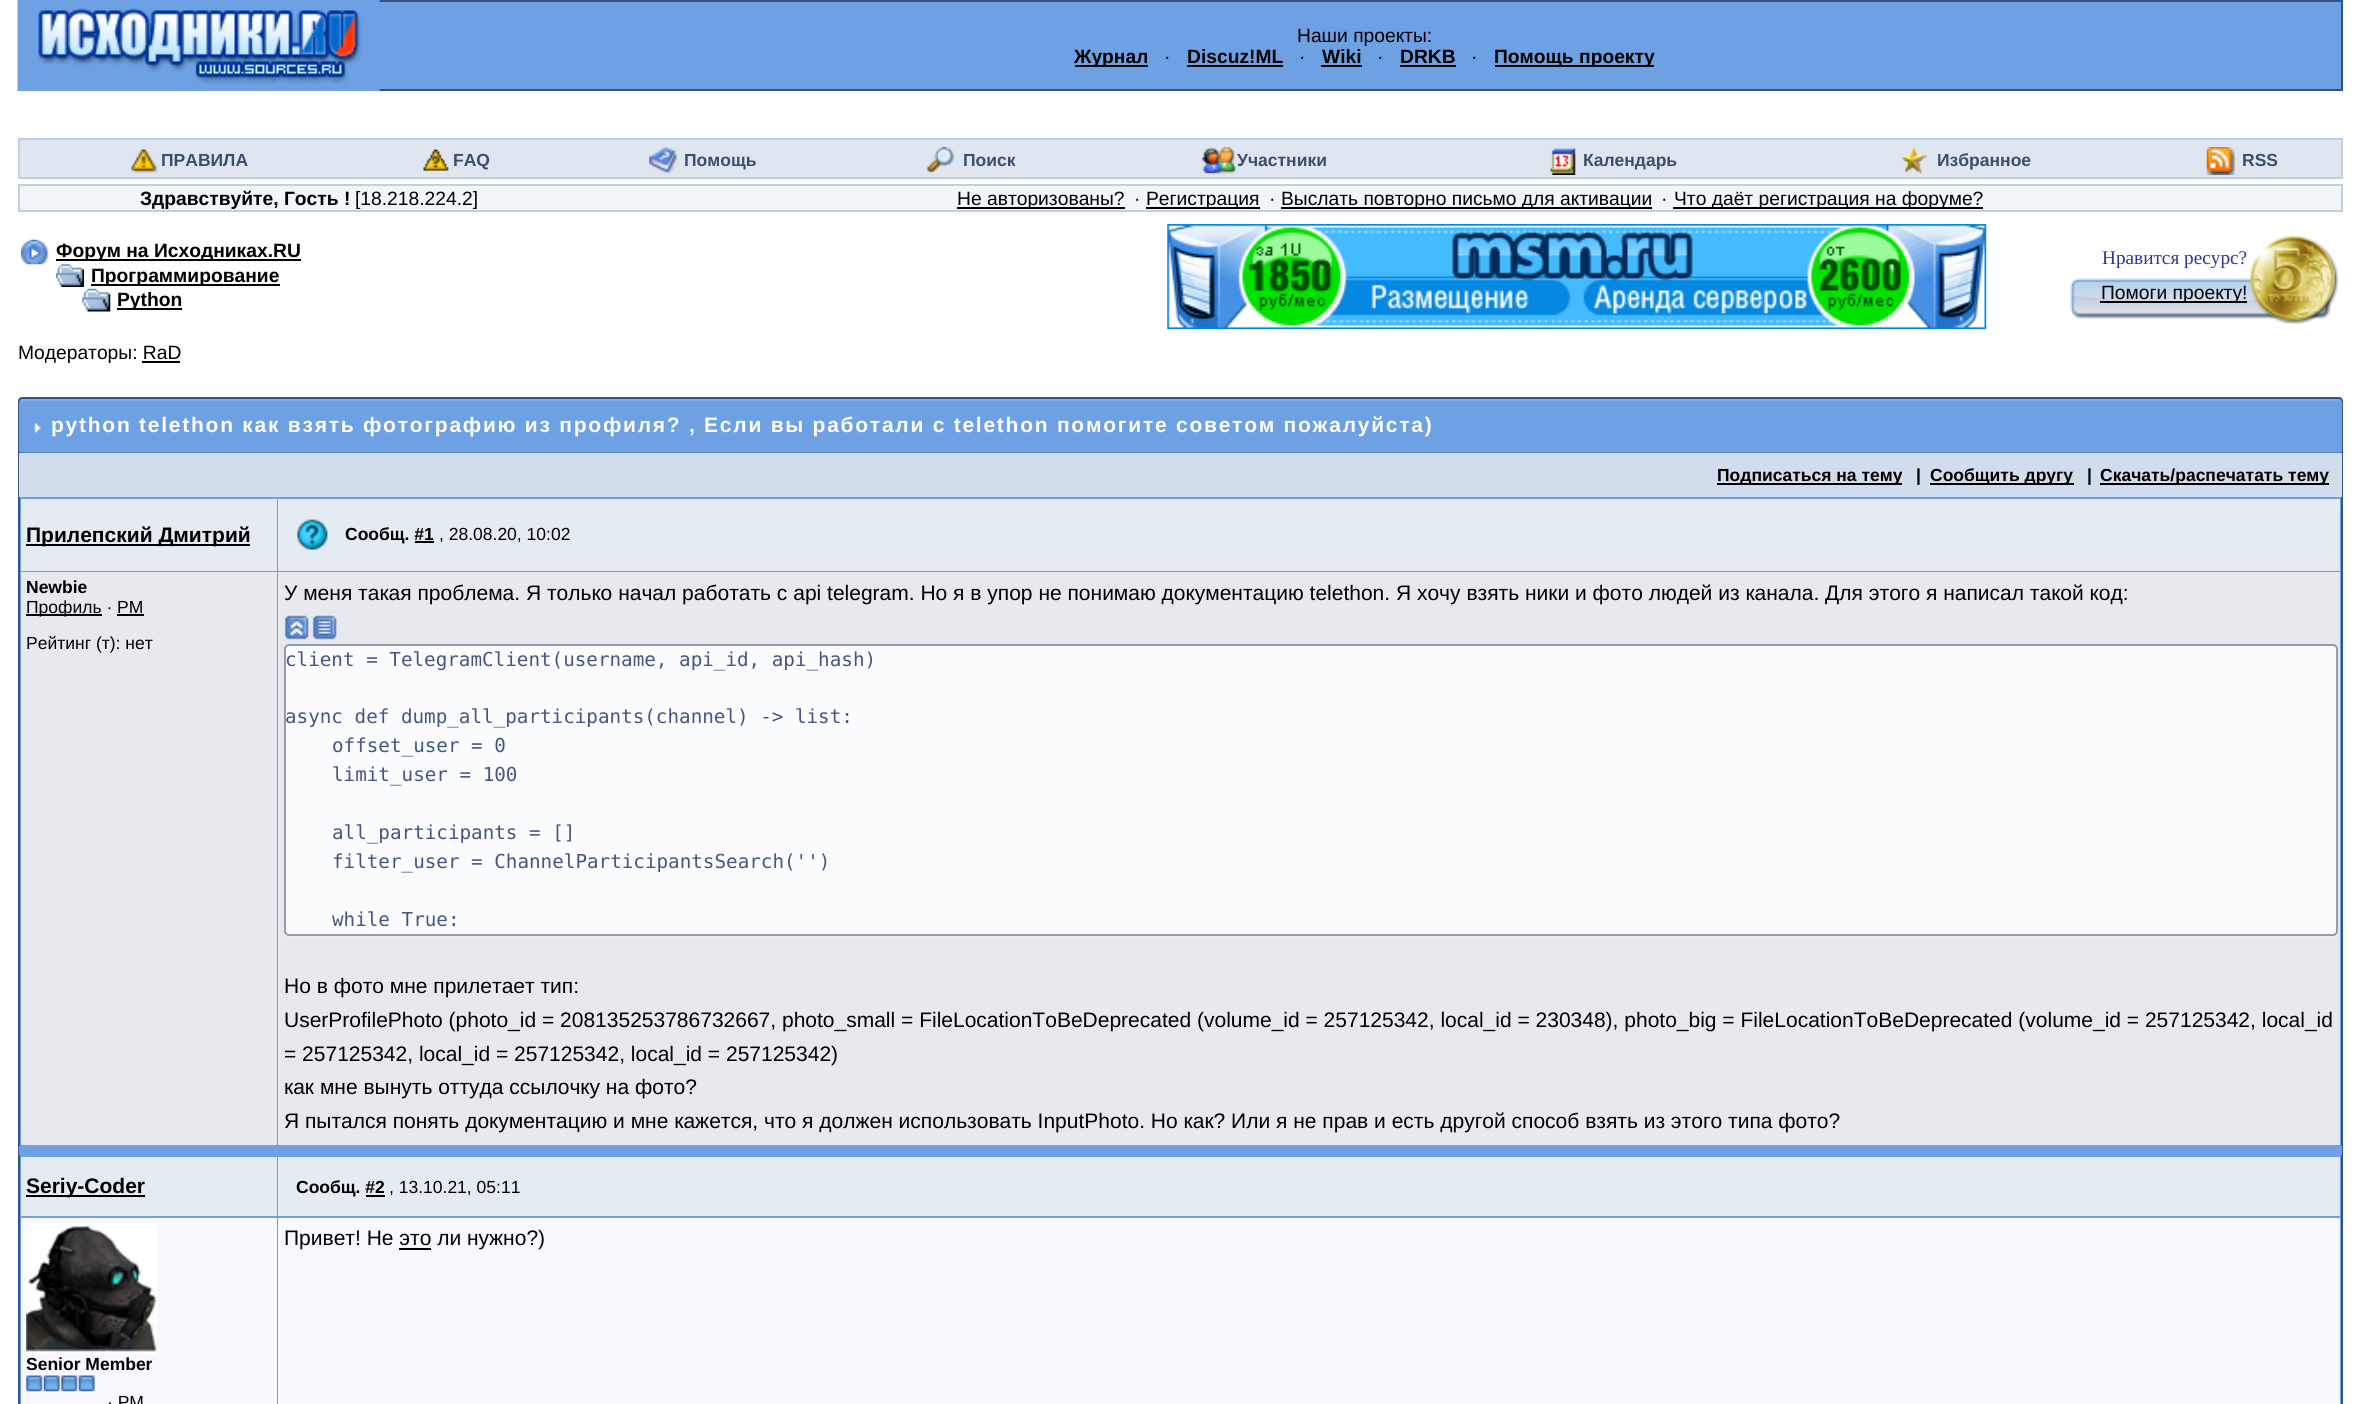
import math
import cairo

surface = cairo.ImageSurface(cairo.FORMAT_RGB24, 2360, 1404)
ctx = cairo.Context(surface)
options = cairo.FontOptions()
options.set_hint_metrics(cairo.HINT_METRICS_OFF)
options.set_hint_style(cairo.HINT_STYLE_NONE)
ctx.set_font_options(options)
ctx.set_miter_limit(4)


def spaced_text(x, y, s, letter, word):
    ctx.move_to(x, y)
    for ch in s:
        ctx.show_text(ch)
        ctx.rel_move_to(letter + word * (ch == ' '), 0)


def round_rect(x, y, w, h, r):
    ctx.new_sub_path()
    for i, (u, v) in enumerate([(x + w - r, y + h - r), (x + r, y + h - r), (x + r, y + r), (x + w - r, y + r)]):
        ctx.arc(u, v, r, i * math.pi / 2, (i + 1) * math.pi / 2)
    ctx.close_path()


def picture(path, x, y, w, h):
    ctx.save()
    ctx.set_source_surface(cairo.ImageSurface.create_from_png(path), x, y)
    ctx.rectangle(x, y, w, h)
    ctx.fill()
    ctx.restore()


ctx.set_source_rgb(1, 1, 1)
ctx.paint()
ctx.set_source_rgb(0.431, 0.631, 0.89)
ctx.rectangle(379, 2, 1962, 87)
ctx.fill()
ctx.rectangle(19, 1, 2323, 89)
ctx.set_source_rgb(0.204, 0.329, 0.529)
ctx.stroke()
picture("img1.png", 17, 0, 363, 91)
ctx.select_font_face("Liberation Sans")
ctx.set_font_size(19.25)
ctx.set_source_rgb(0, 0, 0)
ctx.move_to(1297, 42)
ctx.show_text("Наши проекты:")
ctx.rectangle(1075, 65, 73, 2)
ctx.fill()
ctx.select_font_face("Liberation Sans", cairo.FONT_SLANT_NORMAL, cairo.FONT_WEIGHT_BOLD)
ctx.move_to(1074, 63)
ctx.show_text("Журнал")
ctx.select_font_face("Liberation Sans")
ctx.move_to(1164, 63)
ctx.show_text("·")
ctx.select_font_face("Liberation Sans", cairo.FONT_SLANT_NORMAL, cairo.FONT_WEIGHT_BOLD)
ctx.move_to(1187, 63)
ctx.show_text("Discuz!ML")
ctx.rectangle(1187, 65, 96, 2)
ctx.fill()
ctx.select_font_face("Liberation Sans")
ctx.move_to(1299, 63)
ctx.show_text("·")
ctx.select_font_face("Liberation Sans", cairo.FONT_SLANT_NORMAL, cairo.FONT_WEIGHT_BOLD)
ctx.move_to(1322, 63)
ctx.show_text("Wiki")
ctx.rectangle(1321, 65, 41, 2)
ctx.fill()
ctx.select_font_face("Liberation Sans")
ctx.move_to(1377, 63)
ctx.show_text("·")
ctx.select_font_face("Liberation Sans", cairo.FONT_SLANT_NORMAL, cairo.FONT_WEIGHT_BOLD)
ctx.move_to(1400, 63)
ctx.show_text("DRKB")
ctx.rectangle(1400, 65, 56, 2)
ctx.fill()
ctx.select_font_face("Liberation Sans")
ctx.move_to(1471, 63)
ctx.show_text("·")
ctx.rectangle(1495, 65, 159, 2)
ctx.fill()
ctx.select_font_face("Liberation Sans", cairo.FONT_SLANT_NORMAL, cairo.FONT_WEIGHT_BOLD)
ctx.move_to(1494, 63)
ctx.show_text("Помощь проекту")
ctx.set_source_rgb(0.875, 0.902, 0.937)
ctx.rectangle(19, 139, 2323, 39)
ctx.fill_preserve()
ctx.set_source_rgb(0.737, 0.816, 0.929)
ctx.stroke()
picture("img2.png", 130, 148, 28, 25)
ctx.set_font_size(17.5)
ctx.set_source_rgb(0.227, 0.31, 0.424)
ctx.move_to(161, 166)
ctx.show_text("ПРАВИЛА")
picture("img3.png", 423, 149, 26, 22)
ctx.move_to(453, 166)
ctx.show_text("FAQ")
picture("img4.png", 649, 147, 29, 27)
ctx.move_to(684, 166)
ctx.show_text("Помощь")
picture("img5.png", 927, 147, 27, 27)
ctx.move_to(963, 166)
ctx.show_text("Поиск")
picture("img6.png", 1202, 147, 34, 27)
ctx.move_to(1237, 166)
ctx.show_text("Участники")
picture("img7.png", 1550, 148, 26, 27)
ctx.move_to(1583, 166)
ctx.show_text("Календарь")
picture("img8.png", 1902, 147, 25, 27)
ctx.move_to(1937, 166)
ctx.show_text("Избранное")
picture("img9.png", 2206, 147, 29, 28)
ctx.move_to(2242, 166)
ctx.show_text("RSS")
ctx.set_source_rgb(0.941, 0.961, 0.98)
ctx.rectangle(19, 185, 2323, 26)
ctx.fill_preserve()
ctx.set_source_rgb(0.761, 0.812, 0.875)
ctx.stroke()
ctx.set_font_size(19.25)
ctx.set_source_rgb(0, 0, 0)
ctx.move_to(140, 205)
ctx.show_text("Здравствуйте, Гость !")
ctx.select_font_face("Liberation Sans")
ctx.move_to(355, 205)
ctx.show_text("[18.218.224.2]")
ctx.rectangle(957, 207, 168, 2)
ctx.fill()
ctx.move_to(957, 205)
ctx.show_text("Не авторизованы?")
ctx.move_to(1134, 205)
ctx.show_text("·")
ctx.rectangle(1146, 207, 114, 2)
ctx.fill()
ctx.move_to(1146, 205)
ctx.show_text("Регистрация")
ctx.move_to(1269, 205)
ctx.show_text("·")
ctx.rectangle(1281, 207, 371, 2)
ctx.fill()
ctx.move_to(1281, 205)
ctx.show_text("Выслать повторно письмо для активации")
ctx.move_to(1661, 205)
ctx.show_text("·")
ctx.rectangle(1673, 207, 310, 2)
ctx.fill()
ctx.move_to(1674, 205)
ctx.show_text("Что даёт регистрация на форуме?")
picture("img10.png", 21, 239, 28, 26)
ctx.rectangle(56, 259, 245, 2)
ctx.fill()
ctx.select_font_face("Liberation Sans", cairo.FONT_SLANT_NORMAL, cairo.FONT_WEIGHT_BOLD)
ctx.move_to(56, 257)
ctx.show_text("Форум на Исходниках.RU")
picture("img11.png", 56, 264, 28, 23)
ctx.rectangle(91, 284, 189, 2)
ctx.fill()
ctx.move_to(91, 282)
ctx.show_text("Программирование")
picture("img12.png", 82, 288, 29, 24)
ctx.rectangle(117, 308, 65, 2)
ctx.fill()
ctx.move_to(117, 306)
ctx.show_text("Python")
picture("img13.png", 1167, 224, 820, 105)
picture("img14.png", 2070, 278, 261, 41)
ctx.select_font_face("Liberation Serif")
ctx.set_source_rgb(0.2, 0.2, 0.6)
ctx.move_to(2102, 264)
ctx.show_text("Нравится ресурс?")
picture("img15.png", 2250, 236, 88, 88)
ctx.set_source_rgb(0, 0, 0)
ctx.rectangle(2100, 301, 147, 2)
ctx.fill()
ctx.select_font_face("Liberation Sans")
ctx.move_to(2101, 299)
ctx.show_text("Помоги проекту!")
ctx.move_to(18, 359)
ctx.show_text("Модераторы: RaD")
ctx.rectangle(142, 361, 38, 2)
ctx.fill()
ctx.set_source_rgb(0.431, 0.631, 0.89)
round_rect(19, 398, 2323, 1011, 3)
ctx.fill_preserve()
ctx.set_source_rgb(0.204, 0.329, 0.529)
ctx.stroke()
ctx.set_source_rgba(0, 0, 0, 0.2)
ctx.new_path()
ctx.move_to(19, 404)
ctx.line_to(19, 453)
ctx.line_to(2342, 453)
ctx.line_to(2342, 405)
ctx.line_to(2342, 403)
ctx.line_to(2342, 452)
ctx.line_to(19, 452)
ctx.close_path()
ctx.fill()
ctx.set_source_rgb(0.431, 0.631, 0.89)
ctx.new_path()
ctx.move_to(23, 399)
ctx.line_to(2338, 399)
ctx.curve_to(2340, 399, 2342, 401, 2342, 403)
ctx.line_to(2342, 452)
ctx.line_to(19, 452)
ctx.line_to(19, 403)
ctx.curve_to(19, 401, 21, 399, 23, 399)
ctx.close_path()
ctx.fill()
ctx.set_source_rgba(1, 1, 1, 0.1)
ctx.new_path()
ctx.move_to(23, 401)
ctx.line_to(2338, 401)
ctx.curve_to(2340, 401, 2342, 402, 2342, 404)
ctx.curve_to(2342, 401, 2341, 399, 2338, 399)
ctx.line_to(23, 399)
ctx.curve_to(20, 399, 19, 401, 19, 404)
ctx.curve_to(19, 402, 21, 401, 23, 401)
ctx.close_path()
ctx.fill()
picture("img16.png", 34, 423, 7, 10)
ctx.select_font_face("Liberation Sans", cairo.FONT_SLANT_NORMAL, cairo.FONT_WEIGHT_BOLD)
ctx.set_font_size(21)
ctx.set_source_rgb(1, 1, 1)
spaced_text(51, 432, "python telethon как взять фотографию из профиля? , Если вы работали с telethon помогите советом пожалуйста)", 1.75, 0)
ctx.set_source_rgb(0.82, 0.863, 0.922)
ctx.rectangle(19, 453, 2323, 44)
ctx.fill()
ctx.set_source_rgb(0, 0, 0)
ctx.rectangle(1717, 483, 185, 2)
ctx.fill()
ctx.set_font_size(17.5)
ctx.move_to(1717, 481)
ctx.show_text("Подписаться на тему")
ctx.move_to(1916, 481)
ctx.show_text("|")
ctx.rectangle(1930, 483, 144, 2)
ctx.fill()
ctx.move_to(1930, 481)
ctx.show_text("Сообщить другу")
ctx.move_to(2087, 481)
ctx.show_text("|")
ctx.rectangle(2100, 483, 229, 2)
ctx.fill()
ctx.move_to(2100, 481)
ctx.show_text("Скачать/распечатать тему")
ctx.set_source_rgb(0.894, 0.918, 0.949)
ctx.rectangle(21, 499, 256, 72)
ctx.fill()
ctx.set_source_rgb(0, 0, 0)
ctx.rectangle(26, 544, 224, 2)
ctx.fill()
ctx.set_font_size(21)
ctx.move_to(26, 542)
ctx.show_text("Прилепский Дмитрий")
ctx.set_source_rgb(0.894, 0.918, 0.949)
ctx.rectangle(278, 499, 2062, 72)
ctx.fill()
picture("img17.png", 297, 519, 31, 31)
ctx.set_font_size(17.5)
ctx.set_source_rgb(0, 0, 0)
ctx.move_to(345, 540)
ctx.show_text("Сообщ. #1")
ctx.rectangle(415, 541, 19, 2)
ctx.fill()
ctx.select_font_face("Liberation Sans")
ctx.move_to(439, 540)
ctx.show_text(", 28.08.20, 10:02")
ctx.set_source_rgb(0.906, 0.914, 0.933)
ctx.rectangle(21, 572, 256, 573)
ctx.fill()
ctx.select_font_face("Liberation Sans", cairo.FONT_SLANT_NORMAL, cairo.FONT_WEIGHT_BOLD)
ctx.set_source_rgb(0, 0, 0)
ctx.move_to(26, 593)
ctx.show_text("Newbie")
ctx.rectangle(26, 614, 76, 2)
ctx.fill()
ctx.select_font_face("Liberation Sans")
ctx.move_to(26, 613)
ctx.show_text("Профиль · PM")
ctx.rectangle(117, 614, 27, 2)
ctx.fill()
ctx.move_to(26, 649)
ctx.show_text("Рейтинг (т): нет")
ctx.set_source_rgb(0.906, 0.914, 0.933)
ctx.rectangle(278, 572, 2062, 573)
ctx.fill()
ctx.set_font_size(21)
ctx.set_source_rgb(0, 0, 0)
ctx.move_to(284, 600)
ctx.show_text("У меня такая проблема. Я только начал работать с api telegram. Но я в упор не понимаю документацию telethon. Я хочу взять ники и фото людей из канала. Для этого я написал такой код:")
picture("img18.png", 284, 615, 25, 25)
picture("img19.png", 312, 615, 25, 25)
ctx.set_source_rgb(0.933, 0.941, 0.953)
ctx.new_path()
ctx.move_to(284, 933)
ctx.curve_to(284, 936, 286, 938, 289, 938)
ctx.line_to(2333, 938)
ctx.curve_to(2336, 938, 2338, 936, 2338, 933)
ctx.line_to(2338, 931)
ctx.curve_to(2338, 934, 2336, 936, 2333, 936)
ctx.line_to(289, 936)
ctx.curve_to(287, 936, 285, 935, 284, 933)
ctx.close_path()
ctx.fill()
ctx.set_source_rgb(0.98, 0.988, 0.996)
round_rect(285, 645, 2052, 290, 4)
ctx.fill_preserve()
ctx.set_source_rgb(0.6, 0.6, 0.667)
ctx.stroke()
ctx.select_font_face("DejaVu Sans Mono")
ctx.set_font_size(19.25)
ctx.set_source_rgb(0.275, 0.333, 0.518)
ctx.move_to(285, 666)
ctx.show_text("client = TelegramClient(username, api_id, api_hash)")
ctx.move_to(285, 723)
ctx.show_text("async def dump_all_participants(channel) -> list:")
ctx.move_to(332, 752)
ctx.show_text("offset_user = 0")
ctx.move_to(332, 781)
ctx.show_text("limit_user = 100")
ctx.move_to(332, 839)
ctx.show_text("all_participants = []")
ctx.move_to(332, 868)
ctx.show_text("filter_user = ChannelParticipantsSearch('')")
ctx.move_to(332, 926)
ctx.show_text("while True:")
ctx.select_font_face("Liberation Sans")
ctx.set_font_size(21)
ctx.set_source_rgb(0, 0, 0)
ctx.move_to(284, 993)
ctx.show_text("Но в фото мне прилетает тип:")
ctx.move_to(284, 1027)
ctx.show_text("UserProfilePhoto (photo_id = 208135253786732667, photo_small = FileLocationToBeDeprecated (volume_id = 257125342, local_id = 230348), photo_big = FileLocationToBeDeprecated (volume_id = 257125342, local_id")
ctx.move_to(284, 1061)
ctx.show_text("= 257125342, local_id = 257125342, local_id = 257125342)")
ctx.move_to(284, 1094)
ctx.show_text("как мне вынуть оттуда ссылочку на фото?")
ctx.move_to(284, 1128)
ctx.show_text("Я пытался понять документацию и мне кажется, что я должен использовать InputPhoto. Но как? Или я не прав и есть другой способ взять из этого типа фото?")
ctx.set_source_rgb(0.431, 0.631, 0.89)
ctx.rectangle(19, 1146, 2323, 9)
ctx.fill()
ctx.set_source_rgb(0.894, 0.918, 0.949)
ctx.rectangle(21, 1157, 256, 59)
ctx.fill()
ctx.set_source_rgb(0, 0, 0)
ctx.rectangle(26, 1195, 119, 2)
ctx.fill()
ctx.select_font_face("Liberation Sans", cairo.FONT_SLANT_NORMAL, cairo.FONT_WEIGHT_BOLD)
ctx.move_to(26, 1193)
ctx.show_text("Seriy-Coder")
ctx.set_source_rgb(0.894, 0.918, 0.949)
ctx.rectangle(278, 1157, 2062, 59)
ctx.fill()
ctx.set_font_size(17.5)
ctx.set_source_rgb(0, 0, 0)
ctx.move_to(296, 1193)
ctx.show_text("Сообщ. #2")
ctx.rectangle(366, 1195, 19, 2)
ctx.fill()
ctx.select_font_face("Liberation Sans")
ctx.move_to(389, 1193)
ctx.show_text(", 13.10.21, 05:11")
ctx.set_source_rgb(0.973, 0.973, 0.992)
ctx.rectangle(278, 1218, 2062, 186)
ctx.fill()
ctx.set_font_size(21)
ctx.set_source_rgb(0, 0, 0)
ctx.move_to(284, 1245)
ctx.show_text("Привет! Не это ли нужно?)")
ctx.rectangle(399, 1248, 32, 2)
ctx.fill()
ctx.set_source_rgb(0.973, 0.973, 0.992)
ctx.rectangle(21, 1218, 256, 186)
ctx.fill()
picture("img20.png", 26, 1223, 131, 131)
ctx.select_font_face("Liberation Sans", cairo.FONT_SLANT_NORMAL, cairo.FONT_WEIGHT_BOLD)
ctx.set_font_size(17.5)
ctx.set_source_rgb(0, 0, 0)
ctx.move_to(26, 1370)
ctx.show_text("Senior Member")
picture("img21.png", 26, 1375, 17, 17)
picture("img22.png", 43, 1375, 17, 17)
picture("img21.png", 61, 1375, 17, 17)
picture("img22.png", 78, 1375, 17, 17)
ctx.select_font_face("Liberation Sans")
ctx.move_to(107, 1408)
ctx.show_text("· PM")
surface.write_to_png("page.png")
